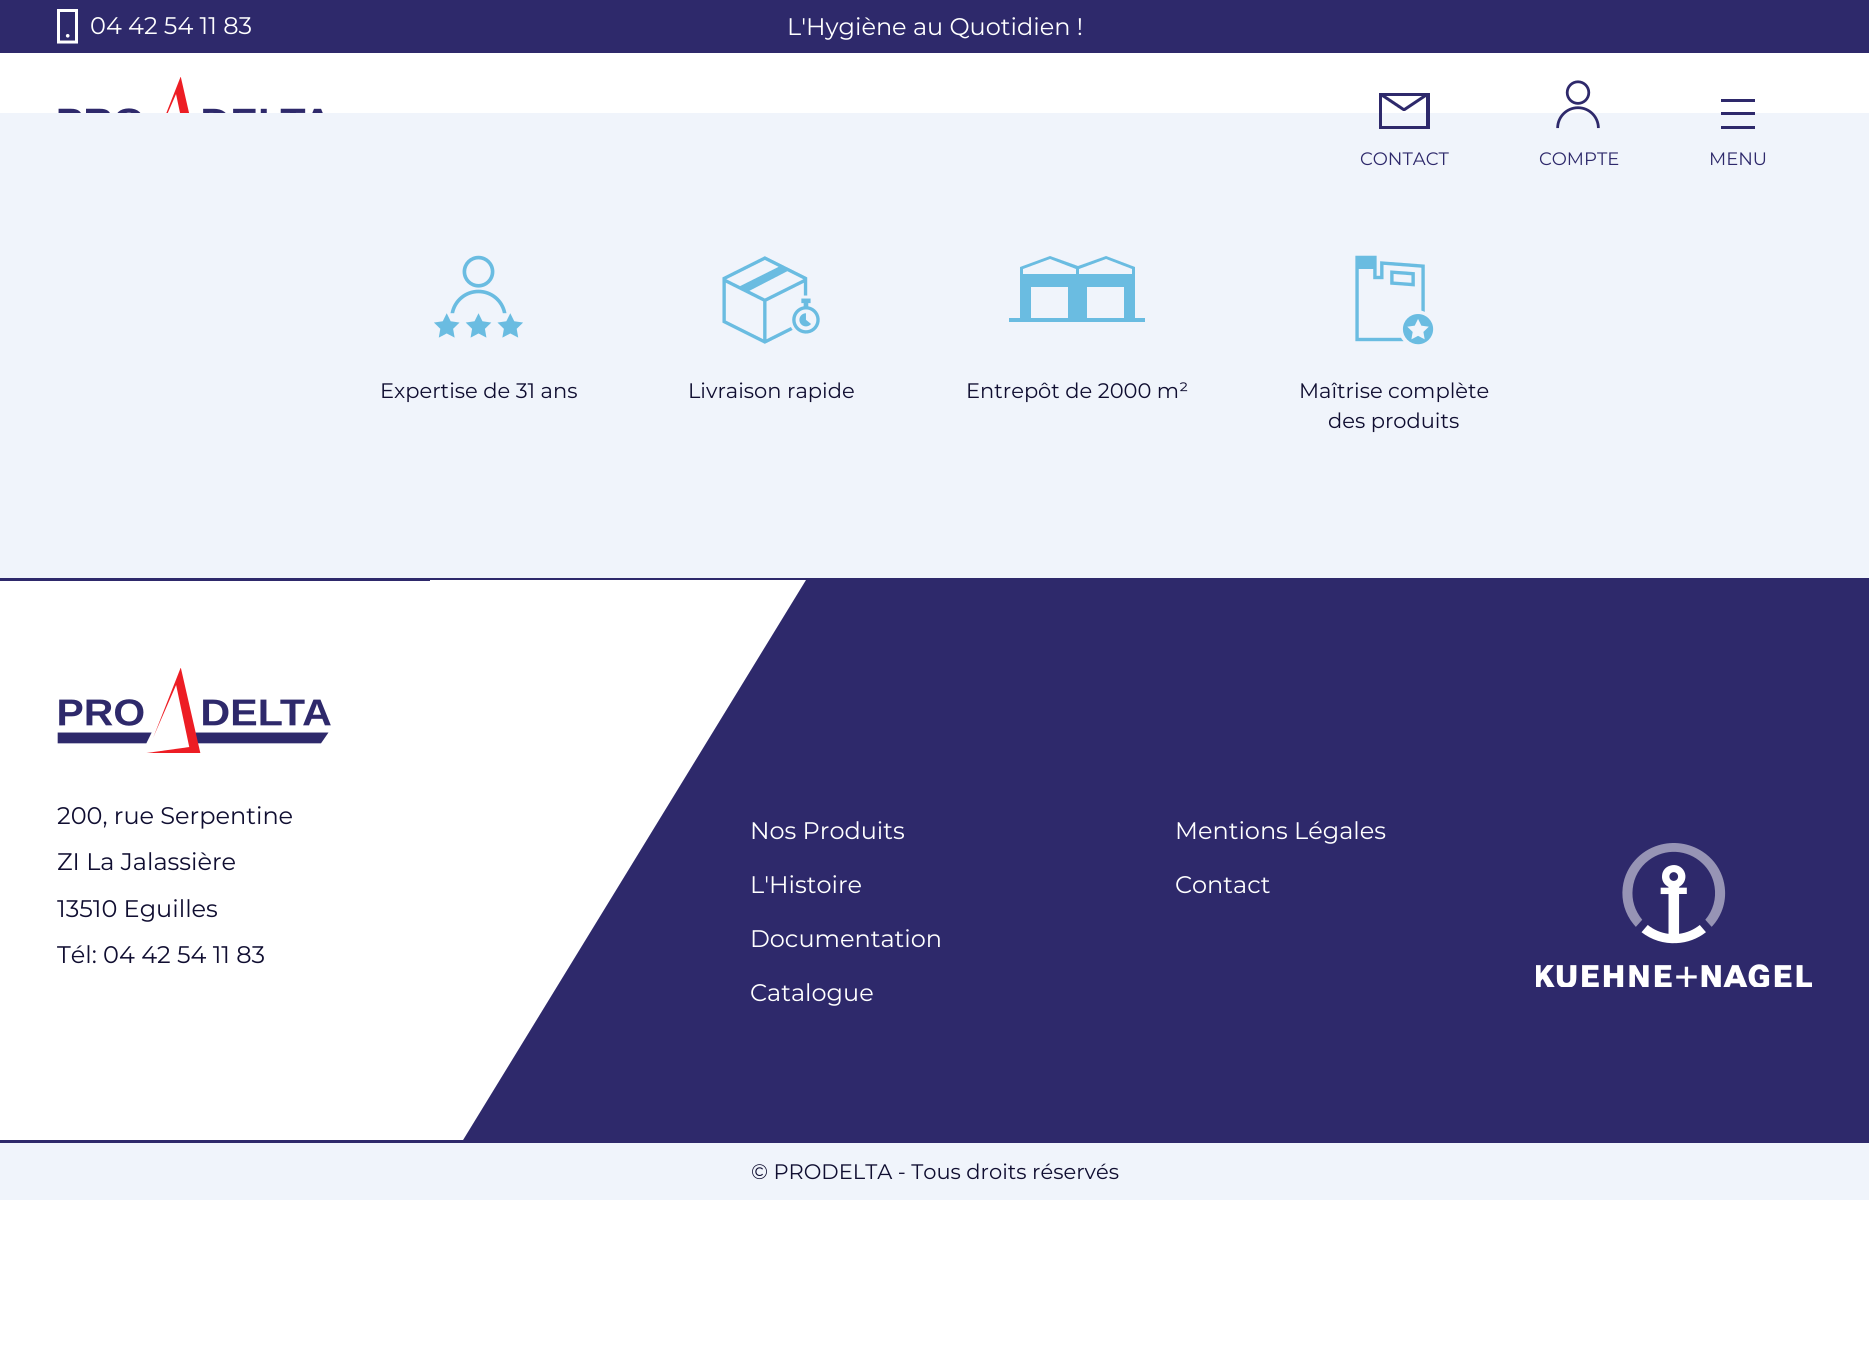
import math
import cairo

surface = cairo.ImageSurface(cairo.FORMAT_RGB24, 1869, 1355)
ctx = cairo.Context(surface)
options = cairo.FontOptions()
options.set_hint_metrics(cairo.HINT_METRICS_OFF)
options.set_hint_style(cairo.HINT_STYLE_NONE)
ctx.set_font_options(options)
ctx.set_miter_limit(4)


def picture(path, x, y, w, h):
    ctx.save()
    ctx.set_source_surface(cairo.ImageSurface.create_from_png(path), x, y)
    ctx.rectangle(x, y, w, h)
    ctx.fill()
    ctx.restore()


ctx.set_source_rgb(1, 1, 1)
ctx.paint()
ctx.set_source_rgb(0.18, 0.161, 0.42)
ctx.rectangle(0, 0, 1869, 53)
ctx.fill()
picture("img1.png", 57, 9, 21, 35)
ctx.select_font_face("Montserrat")
ctx.set_font_size(24)
ctx.set_source_rgb(1, 1, 1)
ctx.move_to(90, 34)
ctx.show_text("04 42 54 11 83")
ctx.move_to(787, 35)
ctx.show_text("L'Hygiène au Quotidien !")
picture("img2.png", 58, 77, 265, 36)
ctx.set_source_rgb(0.941, 0.957, 0.984)
ctx.rectangle(0, 113, 1869, 465)
ctx.fill()
ctx.save()
ctx.rectangle(1379, 93, 51, 36)
ctx.clip()
ctx.set_source_rgb(0.18, 0.161, 0.42)
ctx.new_path()
ctx.move_to(1378, 129)
ctx.line_to(1430, 129)
ctx.line_to(1430, 93)
ctx.line_to(1378, 93)
ctx.close_path()
ctx.move_to(1422, 96)
ctx.line_to(1404, 108)
ctx.line_to(1386, 96)
ctx.close_path()
ctx.move_to(1382, 126)
ctx.line_to(1382, 97)
ctx.line_to(1403, 111)
ctx.line_to(1405, 111)
ctx.line_to(1426, 97)
ctx.line_to(1426, 126)
ctx.close_path()
ctx.fill()
ctx.restore()
ctx.set_font_size(18)
ctx.set_source_rgb(0.18, 0.161, 0.42)
ctx.move_to(1360, 165)
ctx.show_text("CONTACT")
picture("img3.png", 1556, 80, 44, 49)
ctx.move_to(1539, 165)
ctx.show_text("COMPTE")
ctx.rectangle(1721, 99, 34, 3)
ctx.fill()
ctx.rectangle(1721, 112, 34, 3)
ctx.fill()
ctx.rectangle(1721, 126, 34, 3)
ctx.fill()
ctx.move_to(1709, 165)
ctx.show_text("MENU")
picture("img4.png", 434, 255, 89, 83)
ctx.set_font_size(21)
ctx.set_source_rgb(0.063, 0.055, 0.192)
ctx.move_to(380, 398)
ctx.show_text("Expertise de 31 ans")
picture("img5.png", 722, 256, 98, 88)
ctx.move_to(688, 398)
ctx.show_text("Livraison rapide")
ctx.set_source_rgb(0.416, 0.737, 0.882)
ctx.new_path()
ctx.move_to(1009, 322)
ctx.line_to(1009, 318)
ctx.line_to(1020, 318)
ctx.line_to(1020, 267)
ctx.line_to(1050, 256)
ctx.line_to(1078, 266)
ctx.line_to(1106, 256)
ctx.line_to(1135, 267)
ctx.line_to(1135, 318)
ctx.line_to(1145, 318)
ctx.line_to(1145, 322)
ctx.close_path()
ctx.move_to(1124, 318)
ctx.line_to(1124, 287)
ctx.line_to(1087, 287)
ctx.line_to(1087, 318)
ctx.close_path()
ctx.move_to(1068, 318)
ctx.line_to(1068, 287)
ctx.line_to(1031, 287)
ctx.line_to(1031, 318)
ctx.close_path()
ctx.move_to(1132, 274)
ctx.line_to(1132, 269)
ctx.line_to(1106, 259)
ctx.line_to(1079, 269)
ctx.line_to(1079, 274)
ctx.close_path()
ctx.move_to(1023, 269)
ctx.line_to(1023, 274)
ctx.line_to(1076, 274)
ctx.line_to(1076, 269)
ctx.line_to(1050, 259)
ctx.close_path()
ctx.fill()
ctx.set_source_rgb(0.063, 0.055, 0.192)
ctx.move_to(966, 398)
ctx.show_text("Entrepôt de 2000 m²")
picture("img6.png", 1355, 255, 79, 90)
ctx.move_to(1299, 398)
ctx.show_text("Maîtrise complète")
ctx.move_to(1328, 428)
ctx.show_text("des produits")
ctx.set_source_rgb(0.18, 0.161, 0.42)
ctx.rectangle(0, 578, 1869, 562)
ctx.fill()
ctx.set_source_rgb(1, 1, 1)
ctx.rectangle(0, 581, 430, 559)
ctx.fill()
ctx.new_path()
ctx.move_to(430, 580)
ctx.line_to(806, 580)
ctx.line_to(430, 1194)
ctx.close_path()
ctx.fill()
picture("img7.png", 57, 668, 274, 85)
ctx.set_font_size(24)
ctx.set_source_rgb(0.063, 0.055, 0.192)
ctx.move_to(57, 824)
ctx.show_text("200, rue Serpentine")
ctx.move_to(57, 870)
ctx.show_text("ZI La Jalassière")
ctx.move_to(57, 917)
ctx.show_text("13510 Eguilles")
ctx.move_to(57, 963)
ctx.show_text("Tél: 04 42 54 11 83")
ctx.set_source_rgb(1, 1, 1)
ctx.move_to(750, 839)
ctx.show_text("Nos Produits")
ctx.move_to(750, 893)
ctx.show_text("L'Histoire")
ctx.move_to(750, 947)
ctx.show_text("Documentation")
ctx.move_to(750, 1001)
ctx.show_text("Catalogue")
ctx.move_to(1175, 839)
ctx.show_text("Mentions Légales")
ctx.move_to(1175, 893)
ctx.show_text("Contact")
picture("img8.png", 1536, 843, 276, 144)
ctx.set_source_rgb(0.941, 0.957, 0.984)
ctx.rectangle(0, 1143, 1869, 57)
ctx.fill()
ctx.set_source_rgb(0.18, 0.161, 0.42)
ctx.rectangle(0, 1140, 1869, 3)
ctx.fill()
ctx.set_font_size(21)
ctx.set_source_rgb(0.063, 0.055, 0.192)
ctx.move_to(751, 1179)
ctx.show_text("© PRODELTA - Tous droits réservés")
surface.write_to_png("page.png")
